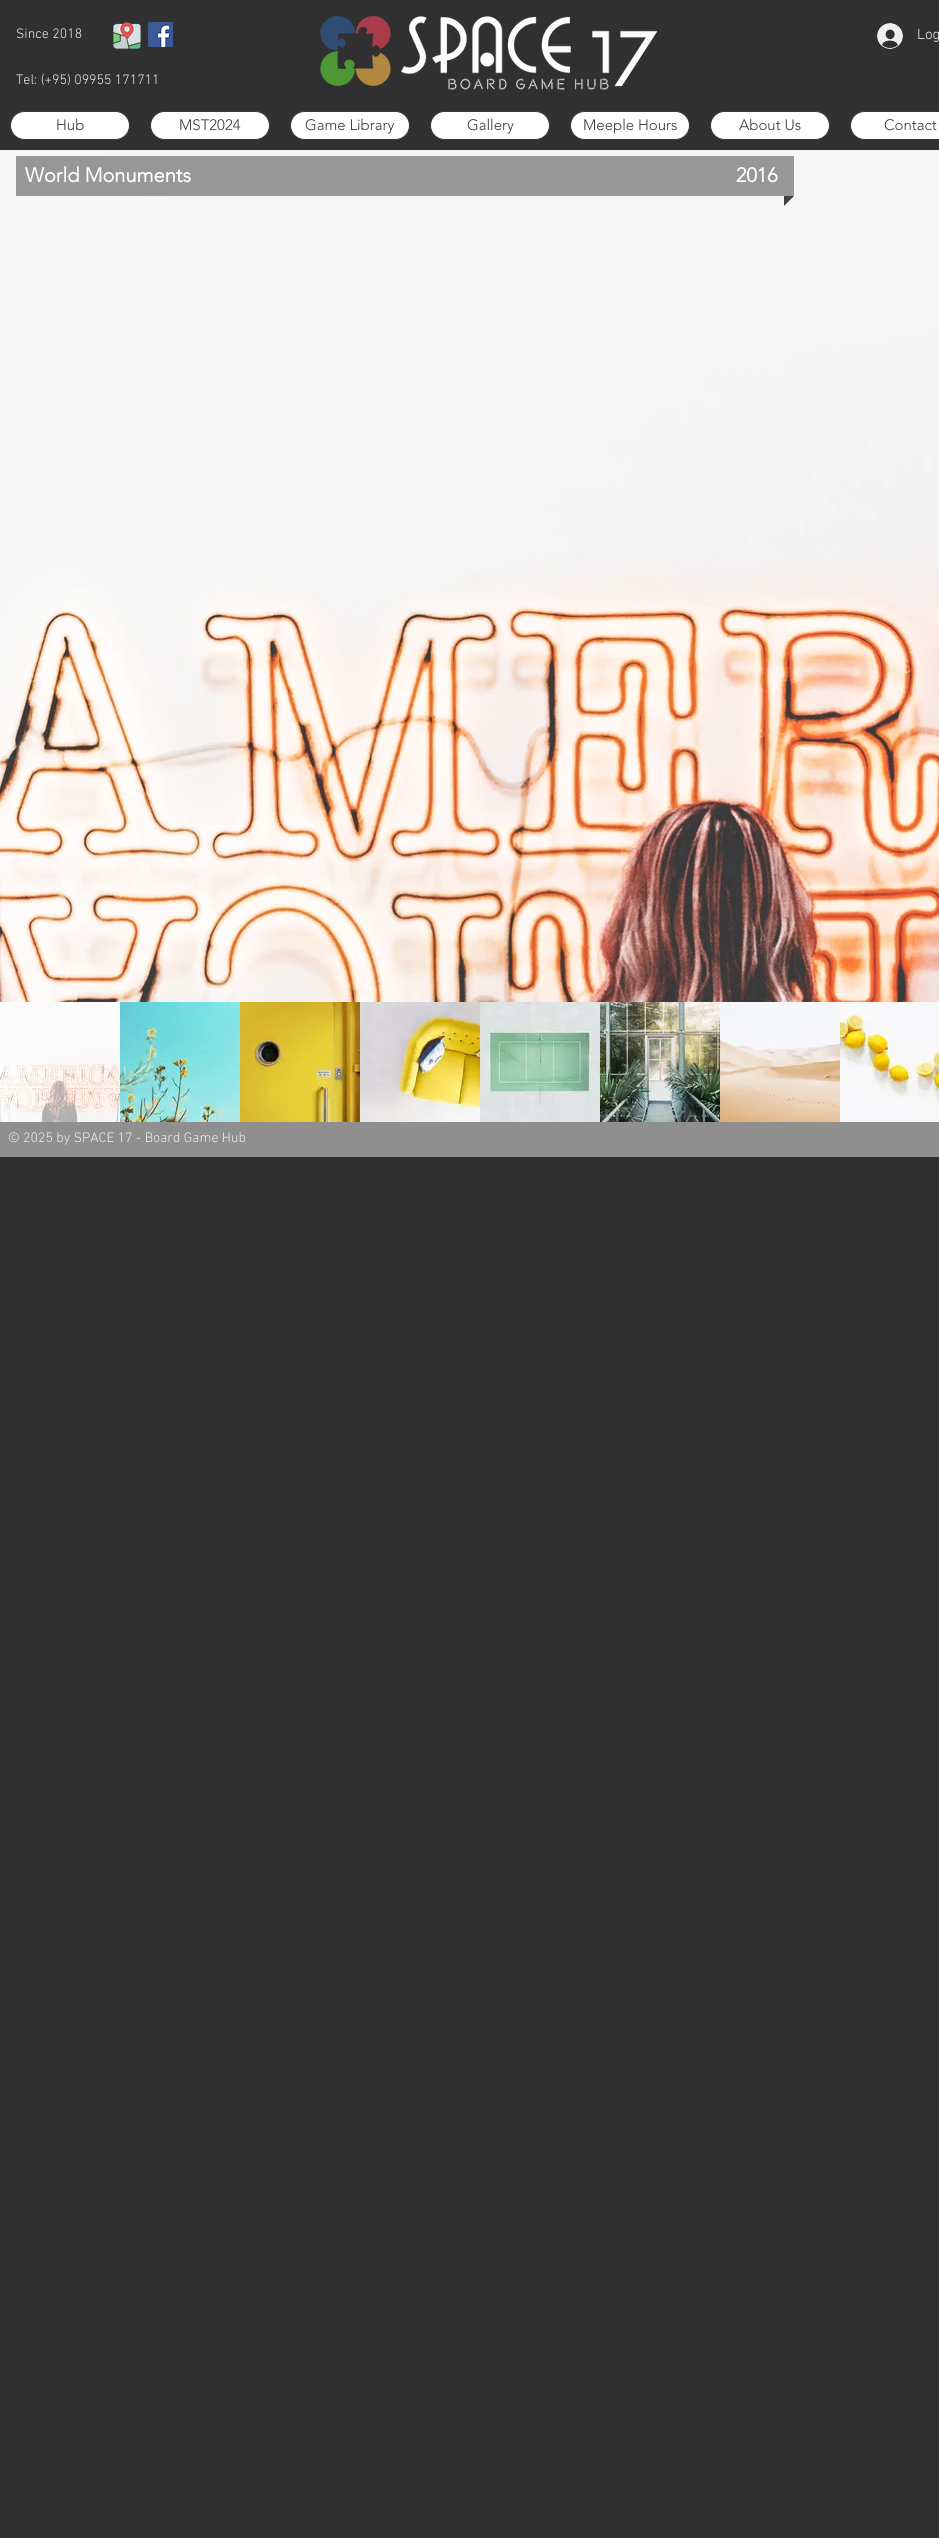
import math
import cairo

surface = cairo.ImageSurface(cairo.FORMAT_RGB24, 939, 2538)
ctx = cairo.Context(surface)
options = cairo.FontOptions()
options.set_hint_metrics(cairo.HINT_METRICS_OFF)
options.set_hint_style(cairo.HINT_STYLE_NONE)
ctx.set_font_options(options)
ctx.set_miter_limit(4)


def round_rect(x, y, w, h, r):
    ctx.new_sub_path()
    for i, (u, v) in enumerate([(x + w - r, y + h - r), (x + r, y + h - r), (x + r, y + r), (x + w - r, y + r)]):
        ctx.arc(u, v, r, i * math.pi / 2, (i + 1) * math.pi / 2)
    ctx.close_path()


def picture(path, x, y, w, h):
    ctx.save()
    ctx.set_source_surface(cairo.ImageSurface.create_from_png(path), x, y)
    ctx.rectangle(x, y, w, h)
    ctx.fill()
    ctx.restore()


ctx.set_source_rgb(0.188, 0.188, 0.188)
ctx.paint()
ctx.select_font_face("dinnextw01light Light")
ctx.set_font_size(14)
ctx.set_source_rgb(0.937, 0.937, 0.937)
ctx.move_to(16, 38)
ctx.show_text("Since 2018")
picture("img1.png", 113, 22, 28, 27)
picture("img2.png", 148, 22, 25, 25)
picture("img3.png", 320, 15, 338, 75)
picture("img4.png", 877, 23, 26, 26)
ctx.set_font_size(15)
ctx.move_to(917, 39)
ctx.show_text("Log")
ctx.set_font_size(14)
ctx.move_to(16, 84)
ctx.show_text("Tel: (+95) 09955 171711")
ctx.set_source_rgb(1, 1, 1)
round_rect(10.5, 111.5, 119, 28, 14)
ctx.fill_preserve()
ctx.set_source_rgb(0.22, 0.22, 0.22)
ctx.set_line_width(1)
ctx.stroke()
ctx.select_font_face("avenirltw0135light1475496 Light")
ctx.set_font_size(15)
ctx.move_to(56, 130)
ctx.show_text("Hub")
ctx.set_source_rgb(1, 1, 1)
round_rect(150.5, 111.5, 119, 28, 14)
ctx.fill_preserve()
ctx.set_source_rgb(0.22, 0.22, 0.22)
ctx.stroke()
ctx.move_to(179, 130)
ctx.show_text("MST2024")
ctx.set_source_rgb(1, 1, 1)
round_rect(290.5, 111.5, 119, 28, 14)
ctx.fill_preserve()
ctx.set_source_rgb(0.22, 0.22, 0.22)
ctx.stroke()
ctx.move_to(305, 130)
ctx.show_text("Game Library")
ctx.set_source_rgb(1, 1, 1)
round_rect(430.5, 111.5, 119, 28, 14)
ctx.fill_preserve()
ctx.set_source_rgb(0.22, 0.22, 0.22)
ctx.stroke()
ctx.move_to(467, 130)
ctx.show_text("Gallery")
ctx.set_source_rgb(1, 1, 1)
round_rect(570.5, 111.5, 119, 28, 14)
ctx.fill_preserve()
ctx.set_source_rgb(0.22, 0.22, 0.22)
ctx.stroke()
ctx.move_to(583, 130)
ctx.show_text("Meeple Hours")
ctx.set_source_rgb(1, 1, 1)
round_rect(710.5, 111.5, 119, 28, 14)
ctx.fill_preserve()
ctx.set_source_rgb(0.22, 0.22, 0.22)
ctx.stroke()
ctx.move_to(739, 130)
ctx.show_text("About Us")
ctx.set_source_rgb(1, 1, 1)
round_rect(850.5, 111.5, 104, 28, 14)
ctx.fill_preserve()
ctx.set_source_rgb(0.22, 0.22, 0.22)
ctx.stroke()
ctx.move_to(884, 130)
ctx.show_text("Contact")
picture("img5.png", 0, 150, 939, 852)
picture("img6.png", 0, 1002, 120, 120)
picture("img7.png", 120, 1002, 120, 120)
picture("img8.png", 240, 1002, 120, 120)
picture("img9.png", 360, 1002, 120, 120)
picture("img10.png", 480, 1002, 120, 120)
picture("img11.png", 600, 1002, 120, 120)
picture("img12.png", 720, 1002, 120, 120)
picture("img13.png", 840, 1002, 99, 120)
ctx.set_source_rgb(0.592, 0.592, 0.592)
ctx.rectangle(16, 156, 778, 40)
ctx.fill()
ctx.select_font_face("avenirltw0135light1475496", cairo.FONT_SLANT_NORMAL, cairo.FONT_WEIGHT_BOLD)
ctx.set_font_size(20)
ctx.set_source_rgb(1, 1, 1)
ctx.move_to(25, 182)
ctx.show_text("World Monuments")
ctx.move_to(736, 182)
ctx.show_text("2016")
ctx.set_source_rgb(0.255, 0.255, 0.255)
ctx.new_path()
ctx.move_to(784, 196)
ctx.line_to(794, 196)
ctx.line_to(784, 206)
ctx.close_path()
ctx.fill()
ctx.set_source_rgb(0.561, 0.561, 0.561)
ctx.rectangle(0, 1122, 939, 35)
ctx.fill()
ctx.select_font_face("dinnextw01light Light")
ctx.set_font_size(14)
ctx.set_source_rgb(0.937, 0.937, 0.937)
ctx.move_to(8, 1142)
ctx.show_text("© 2025 by SPACE 17 - Board Game Hub")
surface.write_to_png("page.png")
